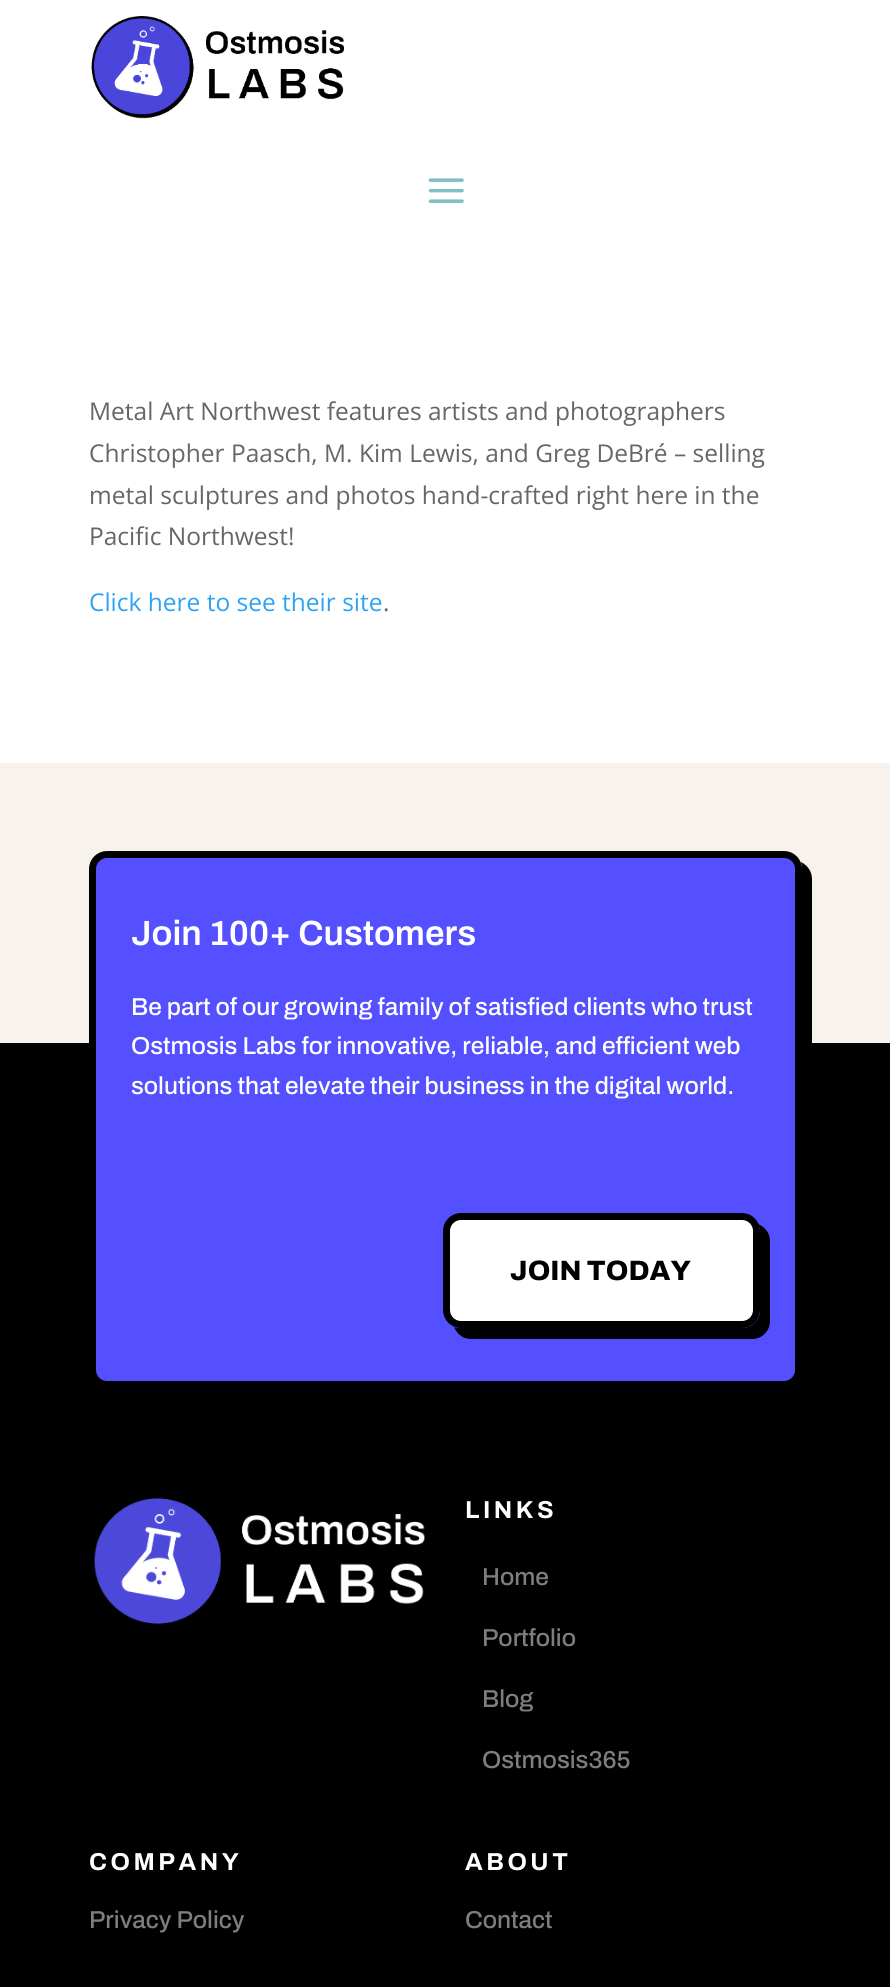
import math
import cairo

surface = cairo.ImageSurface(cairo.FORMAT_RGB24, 890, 1987)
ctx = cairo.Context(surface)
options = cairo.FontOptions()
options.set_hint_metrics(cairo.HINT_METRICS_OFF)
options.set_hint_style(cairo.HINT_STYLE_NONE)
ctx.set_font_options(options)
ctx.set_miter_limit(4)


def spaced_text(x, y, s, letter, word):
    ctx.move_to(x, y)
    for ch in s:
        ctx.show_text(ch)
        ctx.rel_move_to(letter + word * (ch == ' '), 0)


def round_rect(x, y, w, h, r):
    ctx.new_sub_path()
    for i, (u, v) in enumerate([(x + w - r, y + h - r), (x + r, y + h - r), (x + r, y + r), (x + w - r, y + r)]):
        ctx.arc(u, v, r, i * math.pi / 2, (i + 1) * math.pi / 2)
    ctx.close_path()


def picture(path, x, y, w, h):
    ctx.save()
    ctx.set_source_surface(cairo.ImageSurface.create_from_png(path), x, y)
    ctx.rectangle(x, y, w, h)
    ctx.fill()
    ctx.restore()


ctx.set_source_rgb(1, 1, 1)
ctx.paint()
picture("img1.png", 91, 16, 254, 103)
picture("img2.png", 428, 178, 36, 25)
ctx.select_font_face("Open Sans")
ctx.set_font_size(24.5)
ctx.set_source_rgb(0.4, 0.4, 0.4)
ctx.move_to(89, 420)
ctx.show_text("Metal Art Northwest features artists and photographers")
ctx.move_to(89, 462)
ctx.show_text("Christopher Paasch, M. Kim Lewis, and Greg DeBré – selling")
ctx.move_to(89, 504)
ctx.show_text("metal sculptures and photos hand-crafted right here in the")
ctx.move_to(89, 545)
ctx.show_text("Pacific Northwest!")
ctx.set_source_rgb(0.18, 0.639, 0.949)
ctx.move_to(89, 611)
ctx.show_text("Click here to see their site")
ctx.set_source_rgb(0.4, 0.4, 0.4)
ctx.move_to(383, 611)
ctx.show_text(".")
ctx.set_source_rgb(0, 0, 0)
ctx.rectangle(0, 1043, 890, 944)
ctx.fill()
ctx.set_source_rgb(0.965, 0.949, 0.918)
ctx.rectangle(0, 763, 890, 280)
ctx.fill()
ctx.set_source_rgb(0, 0, 0)
ctx.new_path()
ctx.move_to(101, 1387)
ctx.curve_to(104, 1393, 111, 1398, 118, 1398)
ctx.line_to(794, 1398)
ctx.curve_to(804, 1398, 812, 1390, 812, 1380)
ctx.line_to(812, 879)
ctx.curve_to(812, 871, 807, 865, 801, 862)
ctx.line_to(802, 868)
ctx.line_to(802, 1370)
ctx.curve_to(802, 1380, 794, 1388, 784, 1388)
ctx.line_to(107, 1388)
ctx.close_path()
ctx.fill()
ctx.set_source_rgb(0.329, 0.31, 1)
round_rect(92.5, 854.5, 706, 530, 14.5)
ctx.fill_preserve()
ctx.set_source_rgb(0, 0, 0)
ctx.set_line_width(7)
ctx.stroke()
ctx.select_font_face("Archivo SemiBold")
ctx.set_font_size(35)
ctx.set_source_rgb(1, 1, 1)
ctx.move_to(131, 945)
ctx.show_text("Join 100+ Customers")
ctx.select_font_face("Archivo Medium")
ctx.set_font_size(24.5)
ctx.move_to(131, 1015)
ctx.show_text("Be part of our growing family of satisfied clients who trust")
ctx.move_to(131, 1054)
ctx.show_text("Ostmosis Labs for innovative, reliable, and efficient web")
ctx.move_to(131, 1094)
ctx.show_text("solutions that elevate their business in the digital world.")
ctx.set_source_rgb(0, 0, 0)
ctx.new_path()
ctx.move_to(454, 1327)
ctx.curve_to(457, 1334, 463, 1339, 471, 1339)
ctx.line_to(752, 1339)
ctx.curve_to(762, 1339, 770, 1331, 770, 1321)
ctx.line_to(770, 1241)
ctx.curve_to(770, 1233, 765, 1227, 758, 1224)
ctx.curve_to(759, 1226, 760, 1228, 760, 1230)
ctx.line_to(760, 1311)
ctx.curve_to(760, 1320, 752, 1328, 742, 1328)
ctx.line_to(460, 1328)
ctx.curve_to(458, 1328, 456, 1328, 454, 1327)
ctx.close_path()
ctx.fill()
ctx.set_source_rgb(1, 1, 1)
round_rect(446.5, 1216.5, 310, 108, 14.5)
ctx.fill_preserve()
ctx.set_source_rgb(0, 0, 0)
ctx.stroke()
ctx.select_font_face("Archivo ExtraBold")
ctx.set_font_size(28)
ctx.move_to(510, 1280)
ctx.show_text("JOIN TODAY")
picture("img3.png", 94, 1498, 331, 126)
ctx.select_font_face("Archivo", cairo.FONT_SLANT_NORMAL, cairo.FONT_WEIGHT_BOLD)
ctx.set_font_size(24.5)
ctx.set_source_rgb(1, 1, 1)
spaced_text(465, 1518, "LINKS", 3.5, 0)
ctx.select_font_face("Archivo Medium")
ctx.set_source_rgb(0.494, 0.494, 0.494)
ctx.move_to(482, 1585)
ctx.show_text("Home")
ctx.move_to(482, 1646)
ctx.show_text("Portfolio")
ctx.move_to(482, 1707)
ctx.show_text("Blog")
ctx.move_to(482, 1768)
ctx.show_text("Ostmosis365")
ctx.select_font_face("Archivo", cairo.FONT_SLANT_NORMAL, cairo.FONT_WEIGHT_BOLD)
ctx.set_source_rgb(1, 1, 1)
spaced_text(89, 1870, "COMPANY", 3.5, 0)
ctx.select_font_face("Archivo Medium")
ctx.set_source_rgb(0.494, 0.494, 0.494)
ctx.move_to(89, 1928)
ctx.show_text("Privacy Policy")
ctx.select_font_face("Archivo", cairo.FONT_SLANT_NORMAL, cairo.FONT_WEIGHT_BOLD)
ctx.set_source_rgb(1, 1, 1)
spaced_text(465, 1870, "ABOUT", 3.5, 0)
ctx.select_font_face("Archivo Medium")
ctx.set_source_rgb(0.494, 0.494, 0.494)
ctx.move_to(465, 1928)
ctx.show_text("Contact")
surface.write_to_png("page.png")
